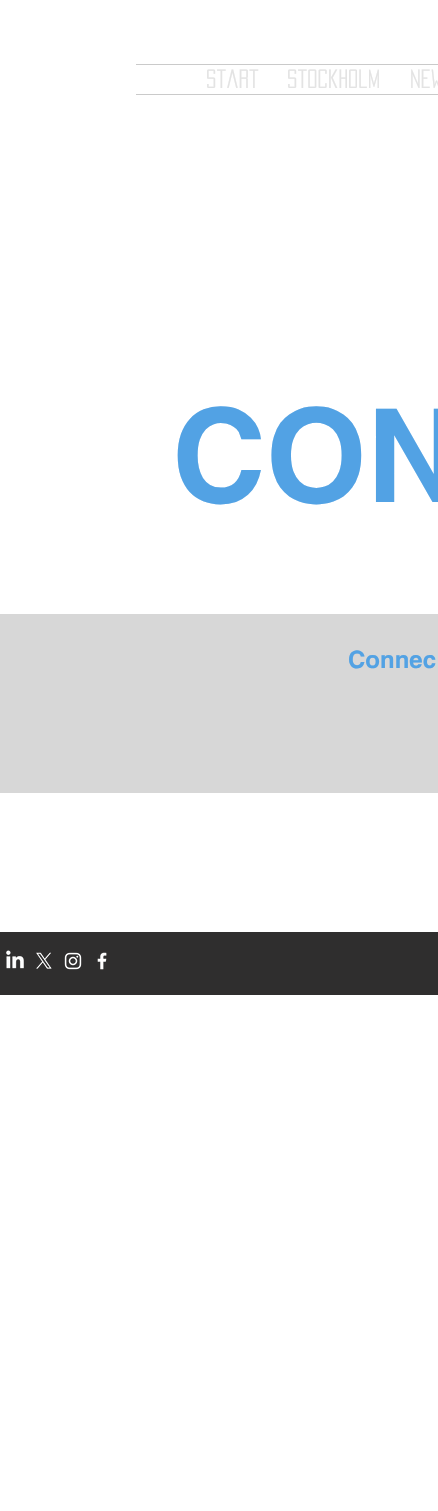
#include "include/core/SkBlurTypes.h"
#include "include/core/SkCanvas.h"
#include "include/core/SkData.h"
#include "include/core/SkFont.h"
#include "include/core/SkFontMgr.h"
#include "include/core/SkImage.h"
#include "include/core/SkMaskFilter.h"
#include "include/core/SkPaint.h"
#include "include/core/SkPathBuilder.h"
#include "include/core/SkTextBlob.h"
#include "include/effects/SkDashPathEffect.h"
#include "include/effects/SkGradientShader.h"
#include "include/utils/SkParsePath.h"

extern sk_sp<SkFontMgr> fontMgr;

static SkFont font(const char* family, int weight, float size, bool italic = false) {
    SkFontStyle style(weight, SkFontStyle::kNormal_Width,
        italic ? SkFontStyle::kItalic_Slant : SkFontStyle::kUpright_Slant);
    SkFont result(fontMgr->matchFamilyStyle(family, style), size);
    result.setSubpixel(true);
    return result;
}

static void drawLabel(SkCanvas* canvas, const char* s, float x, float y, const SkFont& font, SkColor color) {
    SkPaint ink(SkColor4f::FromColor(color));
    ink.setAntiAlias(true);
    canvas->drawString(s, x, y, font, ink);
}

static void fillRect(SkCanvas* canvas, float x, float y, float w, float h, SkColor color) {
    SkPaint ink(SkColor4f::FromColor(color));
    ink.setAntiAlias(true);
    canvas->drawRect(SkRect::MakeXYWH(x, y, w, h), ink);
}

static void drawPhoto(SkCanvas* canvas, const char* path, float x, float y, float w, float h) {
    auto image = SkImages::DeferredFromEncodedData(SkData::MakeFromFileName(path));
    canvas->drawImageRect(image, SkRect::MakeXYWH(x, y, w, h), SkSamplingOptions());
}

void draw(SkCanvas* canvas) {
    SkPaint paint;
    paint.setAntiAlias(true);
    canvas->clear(0xFFFFFFFF);
    fillRect(canvas, 136, 64, 302, 1, 0xFFCACACA);
    fillRect(canvas, 136, 94, 302, 1, 0xFFCACACA);
    SkFont font1 = font("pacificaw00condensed", 400, 23);
    drawLabel(canvas, "Start", 206, 88, font1, 0xFFE3E3E3);
    drawLabel(canvas, "Stockholm", 287, 88, font1, 0xFFE3E3E3);
    drawLabel(canvas, "New", 410, 88, font1, 0xFFE3E3E3);
    SkFont font2 = font("helvetica", 700, 130);
    drawLabel(canvas, "CON", 172, 502, font2, 0xFF52A2E4);
    fillRect(canvas, 0, 614, 438, 179, 0xFFD7D7D7);
    SkFont font3 = font("helvetica", 700, 24);
    drawLabel(canvas, "Connec", 348, 668, font3, 0xFF52A2E4);
    fillRect(canvas, 0, 932, 438, 63, 0xFF2F2E2E);
    drawPhoto(canvas, "assets/img1.png", 6, 950, 18, 19);
    drawPhoto(canvas, "assets/img2.png", 36, 952, 16, 17);
    drawPhoto(canvas, "assets/img3.png", 64, 952, 18, 18);
    drawPhoto(canvas, "assets/img4.png", 97, 952, 10, 18);
}
